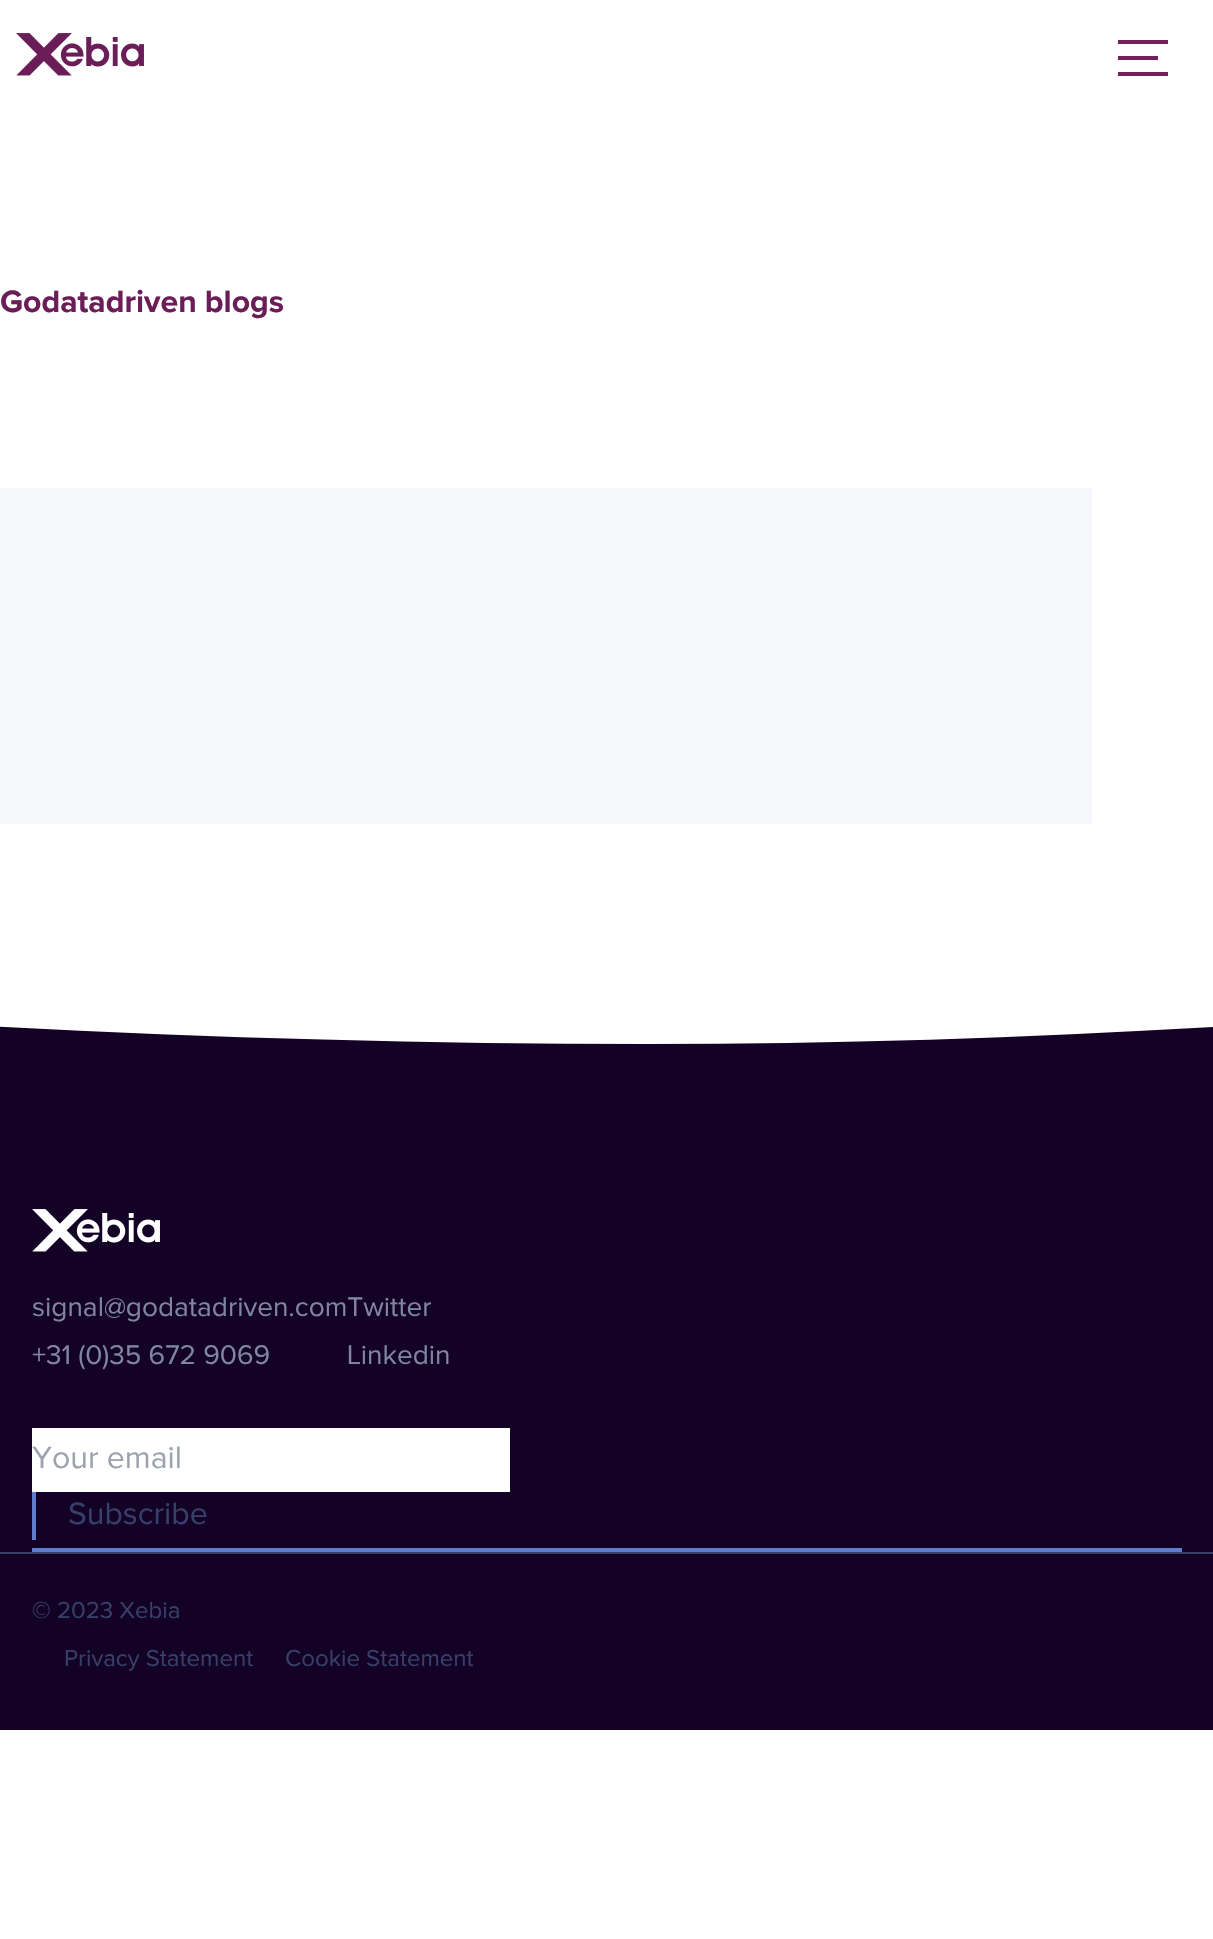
#include "include/core/SkBlurTypes.h"
#include "include/core/SkCanvas.h"
#include "include/core/SkData.h"
#include "include/core/SkFont.h"
#include "include/core/SkFontMgr.h"
#include "include/core/SkImage.h"
#include "include/core/SkMaskFilter.h"
#include "include/core/SkPaint.h"
#include "include/core/SkPathBuilder.h"
#include "include/core/SkTextBlob.h"
#include "include/effects/SkDashPathEffect.h"
#include "include/effects/SkGradientShader.h"
#include "include/utils/SkParsePath.h"

extern sk_sp<SkFontMgr> fontMgr;

static SkFont font(const char* family, int weight, float size, bool italic = false) {
    SkFontStyle style(weight, SkFontStyle::kNormal_Width,
        italic ? SkFontStyle::kItalic_Slant : SkFontStyle::kUpright_Slant);
    SkFont result(fontMgr->matchFamilyStyle(family, style), size);
    result.setSubpixel(true);
    return result;
}

static void drawLabel(SkCanvas* canvas, const char* s, float x, float y, const SkFont& font, SkColor color) {
    SkPaint ink(SkColor4f::FromColor(color));
    ink.setAntiAlias(true);
    canvas->drawString(s, x, y, font, ink);
}

static void fillRect(SkCanvas* canvas, float x, float y, float w, float h, SkColor color) {
    SkPaint ink(SkColor4f::FromColor(color));
    ink.setAntiAlias(true);
    canvas->drawRect(SkRect::MakeXYWH(x, y, w, h), ink);
}

static void drawPhoto(SkCanvas* canvas, const char* path, float x, float y, float w, float h) {
    auto image = SkImages::DeferredFromEncodedData(SkData::MakeFromFileName(path));
    canvas->drawImageRect(image, SkRect::MakeXYWH(x, y, w, h), SkSamplingOptions());
}

static SkPath parsePath(const char* data, bool evenOdd = false) {
    SkPath result = *SkParsePath::FromSVGString(data);
    if (evenOdd) result.setFillType(SkPathFillType::kEvenOdd);
    return result;
}

void draw(SkCanvas* canvas) {
    SkPaint paint;
    paint.setAntiAlias(true);
    canvas->clear(0xFFFFFFFF);
    drawPhoto(canvas, "assets/img1.png", 16, 33, 128, 43);
    fillRect(canvas, 1118, 56, 40, 4, 0xFF74205F);
    fillRect(canvas, 1118, 40, 50, 4, 0xFF74205F);
    fillRect(canvas, 1118, 72, 50, 4, 0xFF74205F);
    SkFont font1 = font("Proxima Nova", 700, 32);
    drawLabel(canvas, "Godatadriven blogs", 0, 312, font1, 0xFF6A1D57);
    fillRect(canvas, 0, 488, 1092, 336, 0xFFF7F8FC);
    fillRect(canvas, 0, 1026, 1213, 704, 0xFF140126);
    paint.setColor(0xFFFFFFFF);
    canvas->drawPath(parsePath("M-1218 874V824H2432V874C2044 965 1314 1044 647 1044C-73 1044-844 976-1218 874Z"), paint);
    drawPhoto(canvas, "assets/img2.png", 32, 1209, 128, 43);
    SkFont font2 = font("Proxima Nova", 400, 28);
    drawLabel(canvas, "signal@godatadriven.comTwitter", 32, 1316, font2, 0xFF7F869F);
    drawLabel(canvas, "+31 (0)35 672 9069", 32, 1364, font2, 0xFF7F869F);
    drawLabel(canvas, "Linkedin", 347, 1364, font2, 0xFF7F869F);
    fillRect(canvas, 32, 1548, 1150, 4, 0xFF5F7DCA);
    fillRect(canvas, 32, 1428, 478, 64, 0xFFFFFFFF);
    SkFont font3 = font("Proxima Nova", 400, 32);
    drawLabel(canvas, "Your email", 32, 1468, font3, 0xFF9CA3AF);
    fillRect(canvas, 32, 1492, 4, 48, 0xFF5F7DCA);
    drawLabel(canvas, "Subscribe", 68, 1524, font3, 0xFF364069);
    fillRect(canvas, 0, 1552, 1213, 2, 0xFF364069);
    SkFont font4 = font("Proxima Nova", 400, 24);
    drawLabel(canvas, "© 2023 Xebia", 32, 1618, font4, 0xFF364069);
    drawLabel(canvas, "Privacy Statement", 64, 1666, font4, 0xFF364069);
    drawLabel(canvas, "Cookie Statement", 285, 1666, font4, 0xFF364069);
}
